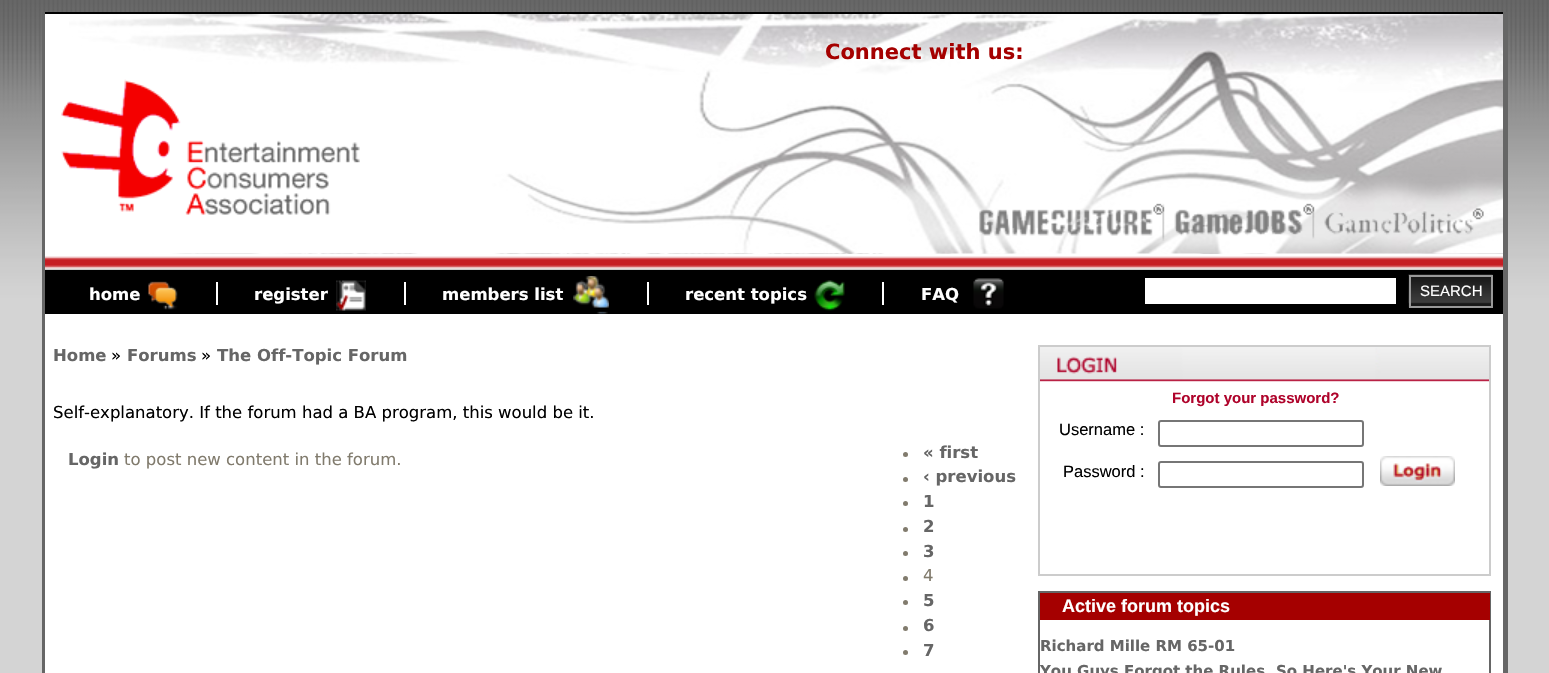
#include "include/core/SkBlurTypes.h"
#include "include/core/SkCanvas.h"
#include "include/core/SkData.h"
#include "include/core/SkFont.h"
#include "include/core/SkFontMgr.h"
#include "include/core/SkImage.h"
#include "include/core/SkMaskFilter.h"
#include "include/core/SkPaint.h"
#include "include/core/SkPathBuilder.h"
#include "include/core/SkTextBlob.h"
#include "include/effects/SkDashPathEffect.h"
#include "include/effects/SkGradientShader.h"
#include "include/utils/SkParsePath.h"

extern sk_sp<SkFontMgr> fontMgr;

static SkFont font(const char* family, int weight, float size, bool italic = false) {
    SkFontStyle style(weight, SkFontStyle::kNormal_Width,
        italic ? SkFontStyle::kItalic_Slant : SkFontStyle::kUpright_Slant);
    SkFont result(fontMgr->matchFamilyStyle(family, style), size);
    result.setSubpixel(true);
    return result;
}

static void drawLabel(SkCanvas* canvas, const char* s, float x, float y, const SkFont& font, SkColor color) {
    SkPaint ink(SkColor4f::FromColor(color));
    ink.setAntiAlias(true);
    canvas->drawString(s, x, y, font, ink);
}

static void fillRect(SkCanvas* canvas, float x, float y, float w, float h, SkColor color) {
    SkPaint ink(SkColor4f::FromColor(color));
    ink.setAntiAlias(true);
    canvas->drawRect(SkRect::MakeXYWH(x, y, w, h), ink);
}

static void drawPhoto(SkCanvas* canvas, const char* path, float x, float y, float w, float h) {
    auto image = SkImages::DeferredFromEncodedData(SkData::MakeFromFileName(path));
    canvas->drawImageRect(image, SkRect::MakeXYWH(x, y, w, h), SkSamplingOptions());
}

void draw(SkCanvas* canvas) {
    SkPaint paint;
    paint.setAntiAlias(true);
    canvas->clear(0xFFFFFFFF);
    drawPhoto(canvas, "assets/img1.png", 0, 0, 1549, 673);
    fillRect(canvas, 45, 14, 1458, 659, 0xFFFFFFFF);
    fillRect(canvas, 1503, 12, 5, 661, 0xFF666666);
    fillRect(canvas, 42, 12, 3, 661, 0xFF666666);
    drawPhoto(canvas, "assets/img2.png", 69, 14, 1434, 240);
    fillRect(canvas, 45, 12, 1458, 2, 0xFF000000);
    SkFont font1 = font("DejaVu Sans", 700, 21);
    drawLabel(canvas, "Connect with us:", 825, 59, font1, 0xFFA50000);
    drawPhoto(canvas, "assets/img3.png", 61, 79, 299, 136);
    drawPhoto(canvas, "assets/img4.png", 979, 203, 184, 33);
    drawPhoto(canvas, "assets/img5.png", 1162, 203, 151, 38);
    drawPhoto(canvas, "assets/img6.png", 1312, 206, 172, 33);
    drawPhoto(canvas, "assets/img7.png", 45, 255, 1458, 15);
    fillRect(canvas, 45, 270, 1458, 44, 0xFF000000);
    fillRect(canvas, 216, 282, 2, 23, 0xFFFFFFFF);
    drawPhoto(canvas, "assets/img8.png", 148, 281, 30, 29);
    SkFont font2 = font("DejaVu Sans", 700, 16.5f);
    drawLabel(canvas, "home", 89, 300, font2, 0xFFFFFFFF);
    fillRect(canvas, 404, 282, 2, 23, 0xFFFFFFFF);
    drawPhoto(canvas, "assets/img9.png", 336, 280, 30, 31);
    drawLabel(canvas, "register", 254, 300, font2, 0xFFFFFFFF);
    fillRect(canvas, 647, 282, 2, 23, 0xFFFFFFFF);
    drawPhoto(canvas, "assets/img10.png", 573, 276, 36, 38);
    drawLabel(canvas, "members list", 442, 300, font2, 0xFFFFFFFF);
    fillRect(canvas, 882, 282, 2, 23, 0xFFFFFFFF);
    drawPhoto(canvas, "assets/img11.png", 814, 280, 31, 31);
    drawLabel(canvas, "recent topics", 685, 300, font2, 0xFFFFFFFF);
    drawPhoto(canvas, "assets/img12.png", 973, 278, 31, 31);
    drawLabel(canvas, "FAQ", 921, 300, font2, 0xFFFFFFFF);
    fillRect(canvas, 1145, 278, 251, 26, 0xFFFFFFFF);
    drawPhoto(canvas, "assets/img13.png", 1408, 274, 85, 34);
    paint.setStroke(true);
    paint.setStrokeWidth(2);
    paint.setColor(0xFF999999);
    canvas->drawRect(SkRect::MakeXYWH(1410, 276, 82, 31), paint);
    SkFont font3 = font("Liberation Sans", 400, 15);
    drawLabel(canvas, "SEARCH", 1420, 296, font3, 0xFFFFFFFF);
    drawLabel(canvas, "Home", 53, 361, font2, 0xFF666666);
    SkFont font4 = font("DejaVu Sans", 400, 16.5f);
    drawLabel(canvas, "»", 111, 361, font4, 0xFF000000);
    drawLabel(canvas, "Forums", 127, 361, font2, 0xFF666666);
    drawLabel(canvas, "»", 201, 361, font4, 0xFF000000);
    drawLabel(canvas, "The Off-Topic Forum", 217, 361, font2, 0xFF666666);
    drawLabel(canvas, "Self-explanatory. If the forum had a BA program, this would be it.", 53, 418, font4, 0xFF000000);
    drawLabel(canvas, "Login", 68, 465, font2, 0xFF666666);
    drawLabel(canvas, "to post new content in the forum.", 124, 465, font4, 0xFF817B6D);
    paint.setStroke(false);
    paint.setColor(0xFF817B6D);
    canvas->drawCircle(905.5f, 454.5f, 2.5f, paint);
    drawLabel(canvas, "« first", 923, 458, font2, 0xFF666666);
    canvas->drawCircle(905.5f, 479.5f, 2.5f, paint);
    drawLabel(canvas, "‹ previous", 923, 482, font2, 0xFF666666);
    canvas->drawCircle(905.5f, 503.5f, 2.5f, paint);
    drawLabel(canvas, "1", 923, 507, font2, 0xFF666666);
    canvas->drawCircle(905.5f, 529.5f, 2.5f, paint);
    drawLabel(canvas, "2", 923, 532, font2, 0xFF666666);
    canvas->drawCircle(905.5f, 553.5f, 2.5f, paint);
    drawLabel(canvas, "3", 923, 557, font2, 0xFF666666);
    canvas->drawCircle(905.5f, 578.5f, 2.5f, paint);
    drawLabel(canvas, "4", 923, 581, font4, 0xFF817B6D);
    canvas->drawCircle(905.5f, 602.5f, 2.5f, paint);
    drawLabel(canvas, "5", 923, 606, font2, 0xFF666666);
    canvas->drawCircle(905.5f, 628.5f, 2.5f, paint);
    drawLabel(canvas, "6", 923, 631, font2, 0xFF666666);
    canvas->drawCircle(905.5f, 652.5f, 2.5f, paint);
    drawLabel(canvas, "7", 923, 656, font2, 0xFF666666);
    drawPhoto(canvas, "assets/img14.png", 1040, 347, 449, 35);
    paint.setStroke(true);
    paint.setColor(0xFFCCCCCC);
    canvas->drawRect(SkRect::MakeXYWH(1039, 346, 451, 229), paint);
    SkFont font5 = font("Liberation Sans", 700, 15);
    drawLabel(canvas, "Forgot your password?", 1172, 403, font5, 0xFFAF032B);
    SkFont font6 = font("Liberation Sans", 400, 16.5f);
    drawLabel(canvas, "Username :", 1059, 435, font6, 0xFF000000);
    paint.setColor(0xFF767676);
    canvas->drawRoundRect(SkRect::MakeXYWH(1159, 421, 204, 25), 2, 2, paint);
    drawLabel(canvas, "Password :", 1063, 477, font6, 0xFF000000);
    canvas->drawRoundRect(SkRect::MakeXYWH(1159, 462, 204, 25), 2, 2, paint);
    drawPhoto(canvas, "assets/img15.png", 1380, 456, 75, 30);
    paint.setColor(0xFF666666);
    canvas->drawRect(SkRect::MakeXYWH(1039, 592, 451, 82), paint);
    fillRect(canvas, 1040, 593, 450, 27, 0xFFA50000);
    SkFont font7 = font("Liberation Sans", 700, 18);
    drawLabel(canvas, "Active forum topics", 1062, 612, font7, 0xFFFFFFFF);
    SkFont font8 = font("DejaVu Sans", 700, 15);
    drawLabel(canvas, "Richard Mille RM 65-01", 1040, 651, font8, 0xFF666666);
    drawLabel(canvas, "You Guys Forgot the Rules, So Here's Your New", 1040, 676, font8, 0xFF666666);
}
